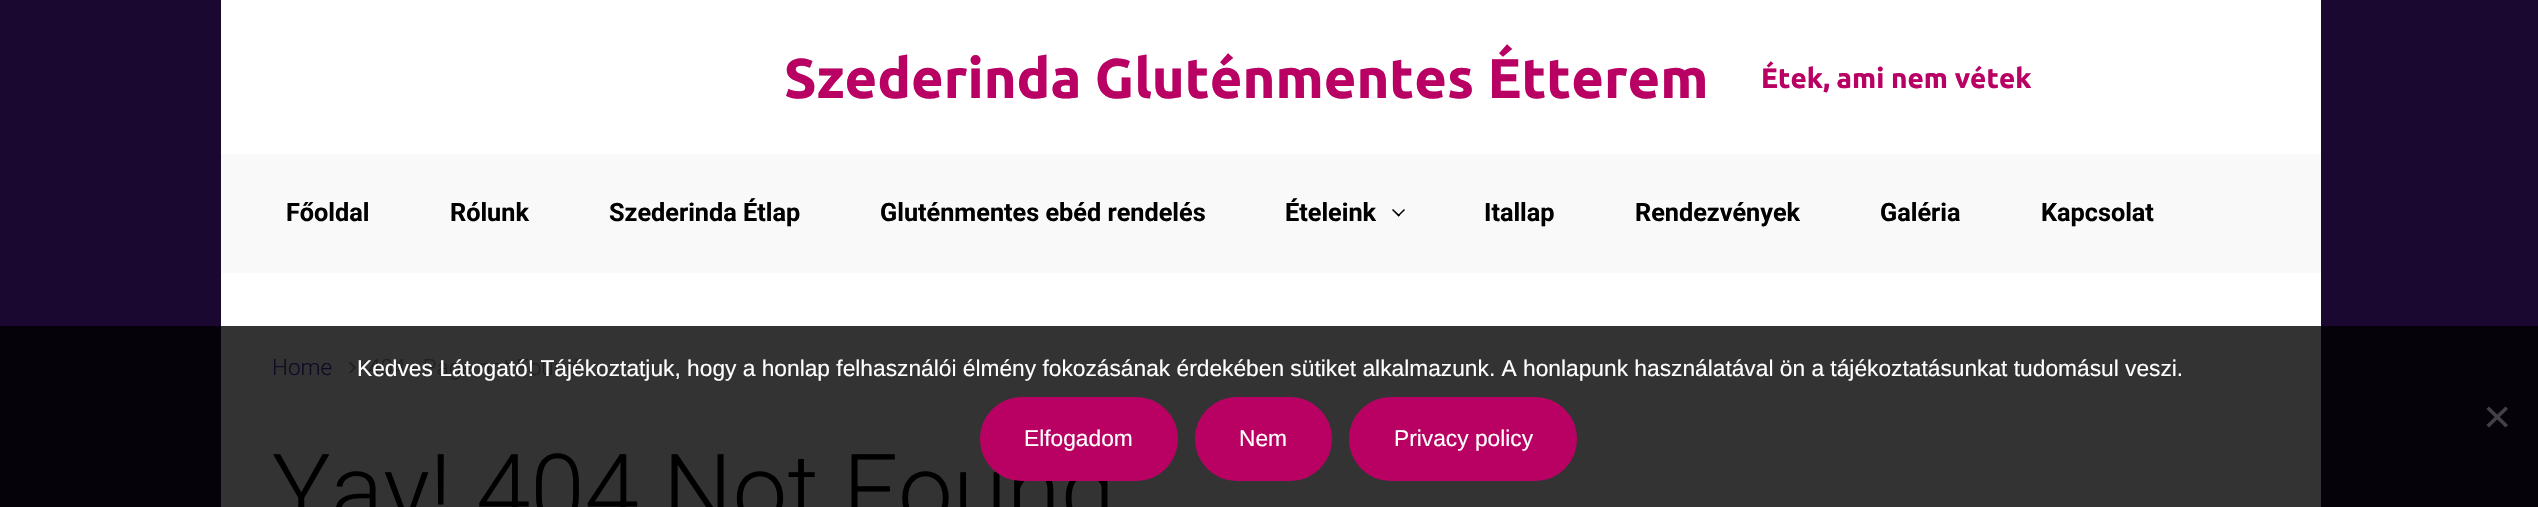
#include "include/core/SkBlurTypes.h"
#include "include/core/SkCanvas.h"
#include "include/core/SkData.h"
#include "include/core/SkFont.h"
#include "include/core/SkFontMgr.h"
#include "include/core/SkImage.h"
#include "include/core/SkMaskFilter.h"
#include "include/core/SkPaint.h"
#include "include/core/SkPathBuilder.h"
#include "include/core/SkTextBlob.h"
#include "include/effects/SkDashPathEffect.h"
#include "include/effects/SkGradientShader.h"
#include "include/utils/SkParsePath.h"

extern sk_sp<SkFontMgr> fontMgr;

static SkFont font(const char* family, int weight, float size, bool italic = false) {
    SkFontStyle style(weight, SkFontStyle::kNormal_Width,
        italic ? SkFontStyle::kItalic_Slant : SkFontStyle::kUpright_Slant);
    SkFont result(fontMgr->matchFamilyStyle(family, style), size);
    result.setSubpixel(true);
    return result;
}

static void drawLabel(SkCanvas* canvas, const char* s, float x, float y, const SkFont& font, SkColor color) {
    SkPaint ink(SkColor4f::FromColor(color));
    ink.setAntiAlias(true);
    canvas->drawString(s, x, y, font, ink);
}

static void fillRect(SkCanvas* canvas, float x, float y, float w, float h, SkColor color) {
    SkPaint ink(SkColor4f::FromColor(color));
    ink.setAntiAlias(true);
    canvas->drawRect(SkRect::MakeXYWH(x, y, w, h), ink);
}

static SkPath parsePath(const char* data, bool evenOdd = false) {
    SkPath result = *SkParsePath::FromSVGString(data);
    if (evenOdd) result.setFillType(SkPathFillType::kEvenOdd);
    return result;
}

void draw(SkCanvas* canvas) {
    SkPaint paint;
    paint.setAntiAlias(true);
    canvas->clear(0xFF1A0831);
    fillRect(canvas, 0, 326, 2538, 181, 0xFF05020A);
    fillRect(canvas, 221, 154, 2100, 119, 0xFFF9F9F9);
    fillRect(canvas, 221, 0, 2100, 154, 0xFFFFFFFF);
    SkFont font1 = font("Ubuntu", 700, 56);
    drawLabel(canvas, "Szederinda Gluténmentes Étterem", 784, 98, font1, 0xFFB90164);
    SkFont font2 = font("Ubuntu", 700, 28);
    drawLabel(canvas, "Étek, ami nem vétek", 1761, 88, font2, 0xFFB90164);
    SkFont font3 = font("Roboto", 700, 25.25f);
    drawLabel(canvas, "Főoldal", 286, 221, font3, 0xFF000000);
    drawLabel(canvas, "Rólunk", 450, 221, font3, 0xFF000000);
    drawLabel(canvas, "Szederinda Étlap", 609, 221, font3, 0xFF000000);
    drawLabel(canvas, "Gluténmentes ebéd rendelés", 880, 221, font3, 0xFF000000);
    drawLabel(canvas, "Ételeink", 1285, 221, font3, 0xFF000000);
    paint.setColor(0xFF000000);
    canvas->drawPath(parsePath("M1404 209L1405 210L1398.5 216.5L1397.5 215.5Z"), paint);
    canvas->drawPath(parsePath("M1393 209L1400 215.5L1398.5 216.5L1392 210Z"), paint);
    drawLabel(canvas, "Itallap", 1484, 221, font3, 0xFF000000);
    drawLabel(canvas, "Rendezvények", 1635, 221, font3, 0xFF000000);
    drawLabel(canvas, "Galéria", 1880, 221, font3, 0xFF000000);
    drawLabel(canvas, "Kapcsolat", 2041, 221, font3, 0xFF000000);
    fillRect(canvas, 221, 273, 2100, 53, 0xFFFFFFFF);
    fillRect(canvas, 221, 326, 2100, 181, 0xFF333333);
    SkFont font4 = font("Roboto", 300, 22.5f);
    drawLabel(canvas, "Home", 272, 375, font4, 0xFF0F0923);
    paint.setColor(0xFF1F1F1F);
    canvas->drawPath(parsePath("M349 363L350 361.5L356 367.5L355 369Z"), paint);
    canvas->drawPath(parsePath("M349 372.5L355 366.5L356 367.5L350 373.5Z"), paint);
    drawLabel(canvas, "404 - Page not Found", 368, 375, font4, 0xFF1F1F1F);
    SkFont font5 = font("Roboto", 300, 98);
    drawLabel(canvas, "Yay! 404 Not Found", 272, 524, font5, 0xFF000000);
    SkFont font6 = font("Liberation Sans", 400, 22.75f);
    drawLabel(canvas, "Kedves Látogató! Tájékoztatjuk, hogy a honlap felhasználói élmény fokozásának érdekében sütiket alkalmazunk. A honlapunk használatával ön a tájékoztatásunkat tudomásul veszi.", 357, 376, font6, 0xFFFFFFFF);
    paint.setColor(0xFF434145);
    canvas->drawPath(parsePath("M2505.5 406.5L2508 409L2489 427.5L2486.5 425Z"), paint);
    canvas->drawPath(parsePath("M2486.5 409L2489 406.5L2508 425L2505.5 427.5Z"), paint);
    paint.setColor(0xFFB90164);
    canvas->drawRoundRect(SkRect::MakeXYWH(982.5f, 399.5f, 193, 79), 39.5f, 39.5f, paint);
    paint.setStroke(true);
    paint.setStrokeWidth(5);
    canvas->drawRoundRect(SkRect::MakeXYWH(982.5f, 399.5f, 193, 79), 39.5f, 39.5f, paint);
    drawLabel(canvas, "Elfogadom", 1024, 446, font6, 0xFFFFFFFF);
    paint.setStroke(false);
    canvas->drawRoundRect(SkRect::MakeXYWH(1197.5f, 399.5f, 132, 79), 39.5f, 39.5f, paint);
    paint.setStroke(true);
    canvas->drawRoundRect(SkRect::MakeXYWH(1197.5f, 399.5f, 132, 79), 39.5f, 39.5f, paint);
    drawLabel(canvas, "Nem", 1239, 446, font6, 0xFFFFFFFF);
    paint.setStroke(false);
    canvas->drawRoundRect(SkRect::MakeXYWH(1351.5f, 399.5f, 223, 79), 39.5f, 39.5f, paint);
    paint.setStroke(true);
    canvas->drawRoundRect(SkRect::MakeXYWH(1351.5f, 399.5f, 223, 79), 39.5f, 39.5f, paint);
    drawLabel(canvas, "Privacy policy", 1394, 446, font6, 0xFFFFFFFF);
}
